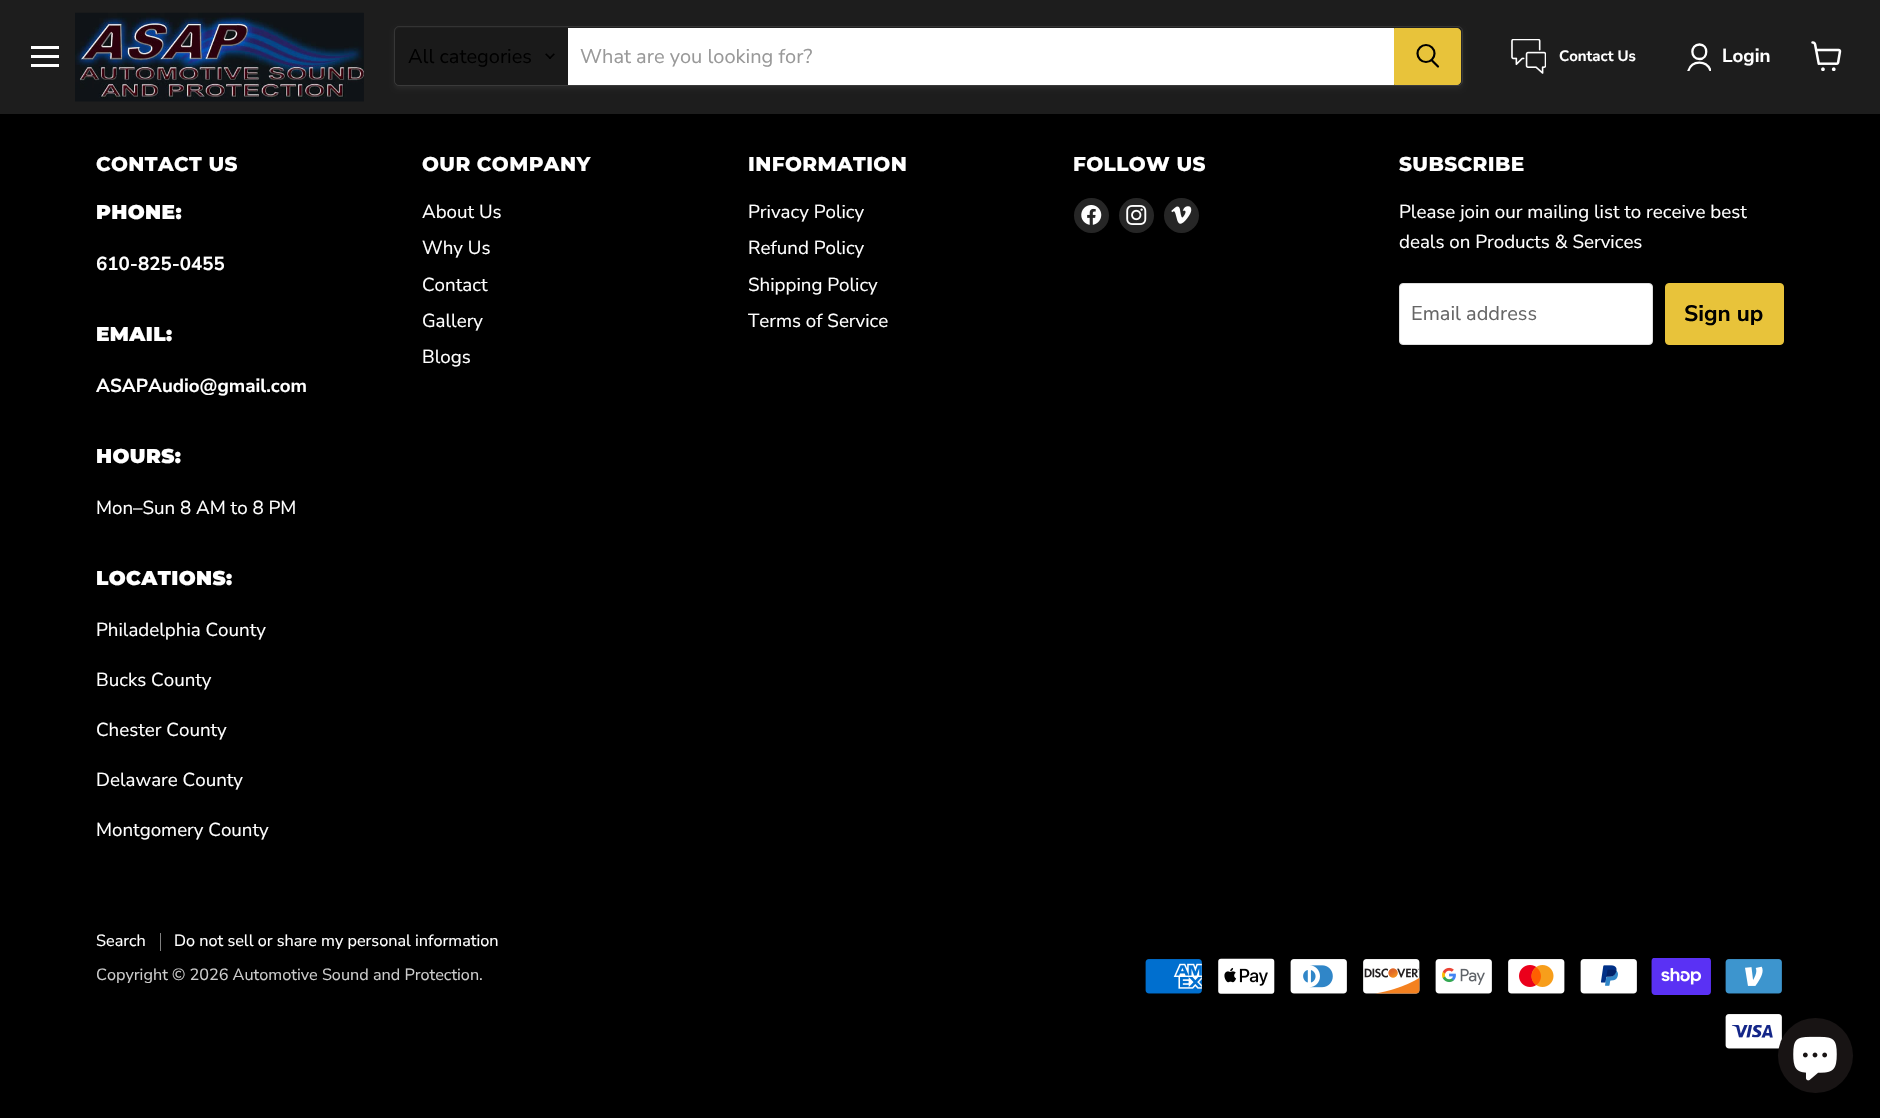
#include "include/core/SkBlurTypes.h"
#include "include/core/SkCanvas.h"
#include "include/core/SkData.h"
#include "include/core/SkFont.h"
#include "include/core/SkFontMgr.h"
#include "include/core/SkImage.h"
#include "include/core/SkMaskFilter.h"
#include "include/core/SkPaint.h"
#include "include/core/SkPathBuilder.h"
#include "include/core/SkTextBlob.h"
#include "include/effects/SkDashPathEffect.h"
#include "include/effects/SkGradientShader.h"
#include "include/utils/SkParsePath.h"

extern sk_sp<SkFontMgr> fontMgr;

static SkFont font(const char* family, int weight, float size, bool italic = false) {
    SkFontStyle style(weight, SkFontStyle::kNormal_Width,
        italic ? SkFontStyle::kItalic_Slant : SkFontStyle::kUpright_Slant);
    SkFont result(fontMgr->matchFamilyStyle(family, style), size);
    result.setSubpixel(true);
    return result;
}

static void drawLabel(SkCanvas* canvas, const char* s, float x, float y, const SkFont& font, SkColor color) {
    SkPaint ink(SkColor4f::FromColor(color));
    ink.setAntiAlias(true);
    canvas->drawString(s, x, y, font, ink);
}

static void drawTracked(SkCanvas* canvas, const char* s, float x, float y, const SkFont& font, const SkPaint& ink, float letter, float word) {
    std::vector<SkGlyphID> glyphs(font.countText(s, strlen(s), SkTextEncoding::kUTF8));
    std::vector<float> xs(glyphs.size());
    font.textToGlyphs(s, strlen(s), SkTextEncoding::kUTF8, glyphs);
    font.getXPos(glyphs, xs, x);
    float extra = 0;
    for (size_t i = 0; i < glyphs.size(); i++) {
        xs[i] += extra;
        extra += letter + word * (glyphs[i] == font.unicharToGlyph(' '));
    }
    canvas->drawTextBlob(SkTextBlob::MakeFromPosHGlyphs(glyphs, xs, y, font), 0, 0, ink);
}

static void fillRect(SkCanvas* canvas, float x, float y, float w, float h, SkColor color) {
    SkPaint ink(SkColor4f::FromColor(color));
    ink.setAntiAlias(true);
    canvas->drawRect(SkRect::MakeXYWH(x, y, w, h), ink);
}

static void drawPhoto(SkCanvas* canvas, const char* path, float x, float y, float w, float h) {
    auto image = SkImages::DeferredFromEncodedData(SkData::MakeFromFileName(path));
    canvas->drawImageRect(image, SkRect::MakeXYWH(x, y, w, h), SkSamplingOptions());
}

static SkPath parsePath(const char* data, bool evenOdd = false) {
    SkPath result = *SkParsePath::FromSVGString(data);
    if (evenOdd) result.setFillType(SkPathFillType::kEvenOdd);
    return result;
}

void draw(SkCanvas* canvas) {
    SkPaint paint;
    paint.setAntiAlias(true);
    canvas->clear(0xFF000000);
    fillRect(canvas, 0, 0, 1880, 114, 0xFF1D1D1D);
    fillRect(canvas, 31, 46, 28, 3, 0xFFFFFFFF);
    fillRect(canvas, 31, 55, 28, 3, 0xFFFFFFFF);
    fillRect(canvas, 31, 64, 28, 3, 0xFFFFFFFF);
    drawPhoto(canvas, "assets/img1.png", 75, 12, 289, 90);
    paint.setColor(0x1C808080);
    paint.setMaskFilter(SkMaskFilter::MakeBlur(kNormal_SkBlurStyle, 2));
    canvas->drawRoundRect(SkRect::MakeXYWH(394, 29, 1069, 60), 5, 5, paint);
    paint.setMaskFilter(nullptr);
    paint.setStroke(true);
    paint.setStrokeWidth(1);
    paint.setColor(0x33808080);
    canvas->drawRoundRect(SkRect::MakeXYWH(394.5f, 26.5f, 1068, 59), 4.5f, 4.5f, paint);
    paint.setStroke(false);
    paint.setColor(0xFF1A1A1A);
    canvas->drawPath(parsePath("M399 28H568V85H399C397 85 395 83 395 81V32C395 30 397 28 399 28Z"), paint);
    SkFont font1 = font("Nunito Sans", 400, 20);
    drawLabel(canvas, "All categories", 408, 63, font1, 0xFF000000);
    drawPhoto(canvas, "assets/img2.png", 545, 53, 10, 6);
    fillRect(canvas, 568, 28, 826, 57, 0xFFFFFFFF);
    drawLabel(canvas, "What are you looking for?", 580, 63, font1, 0xFF999999);
    paint.setColor(0xFFE8C33A);
    canvas->drawPath(parsePath("M1394.5 28.5H1457C1459 28.5 1460.5 30 1460.5 32V81C1460.5 83 1459 84.5 1457 84.5H1394.5Z"), paint);
    paint.setStroke(true);
    canvas->drawPath(parsePath("M1394.5 28.5H1457C1459 28.5 1460.5 30 1460.5 32V81C1460.5 83 1459 84.5 1457 84.5H1394.5Z"), paint);
    paint.setStrokeWidth(2.2f);
    paint.setStrokeCap(SkPaint::kRound_Cap);
    paint.setColor(0xFF000000);
    canvas->drawPath(parsePath("M1438 66.5L1432 60.5"), paint);
    paint.setStrokeCap(SkPaint::kButt_Cap);
    canvas->drawCircle(1426, 53.5f, 8.5f, paint);
    drawPhoto(canvas, "assets/img3.png", 1511, 39, 35, 35);
    SkFont font2 = font("Nunito Sans", 700, 15);
    drawLabel(canvas, "Contact Us", 1559, 61, font2, 0xFFFFFFFF);
    paint.setStrokeWidth(2.3f);
    paint.setStrokeCap(SkPaint::kRound_Cap);
    paint.setStrokeJoin(SkPaint::kRound_Join);
    paint.setColor(0xFFFFFFFF);
    canvas->drawPath(parsePath("M1699.5 59C1708.5 59 1708.5 44.5 1699.5 44.5C1690 44.5 1690 59 1699.5 59Z"), paint);
    canvas->save();
    canvas->clipRect(SkRect::MakeXYWH(1686, 43, 25, 28));
    canvas->drawPath(parsePath("M1710.5 70.5C1706.5 60 1692 60 1688.5 70.5"), paint);
    canvas->restore();
    SkFont font3 = font("Nunito Sans", 700, 18.75f);
    drawLabel(canvas, "Login", 1722, 62, font3, 0xFFFFFFFF);
    drawPhoto(canvas, "assets/img4.png", 1811, 41, 31, 30);
    SkFont font4 = font("Montserrat", 800, 20);
    paint.setStroke(false);
    drawTracked(canvas, "CONTACT US", 96, 171, font4, paint, 0.4f, 0);
    SkFont font5 = font("Montserrat", 900, 20);
    drawTracked(canvas, "PHONE:", 96, 219, font5, paint, 0.4f, 0);
    drawLabel(canvas, "610-825-0455", 96, 270, font3, 0xFFFFFFFF);
    drawTracked(canvas, "EMAIL:", 96, 341, font5, paint, 0.4f, 0);
    drawLabel(canvas, "ASAPAudio@gmail.com", 96, 392, font3, 0xFFFFFFFF);
    drawTracked(canvas, "HOURS:", 96, 463, font5, paint, 0.4f, 0);
    SkFont font6 = font("Nunito Sans", 400, 18.75f);
    drawLabel(canvas, "Mon–Sun 8 AM to 8 PM", 96, 514, font6, 0xFFFFFFFF);
    drawTracked(canvas, "LOCATIONS:", 96, 585, font5, paint, 0.4f, 0);
    drawLabel(canvas, "Philadelphia County", 96, 636, font6, 0xFFFFFFFF);
    drawLabel(canvas, "Bucks County", 96, 686, font6, 0xFFFFFFFF);
    drawLabel(canvas, "Chester County", 96, 736, font6, 0xFFFFFFFF);
    drawLabel(canvas, "Delaware County", 96, 786, font6, 0xFFFFFFFF);
    drawLabel(canvas, "Montgomery County", 96, 836, font6, 0xFFFFFFFF);
    drawTracked(canvas, "OUR COMPANY", 422, 171, font4, paint, 0.4f, 0);
    drawLabel(canvas, "About Us", 422, 218, font6, 0xFFFFFFFF);
    drawLabel(canvas, "Why Us", 422, 254, font6, 0xFFFFFFFF);
    drawLabel(canvas, "Contact", 422, 291, font6, 0xFFFFFFFF);
    drawLabel(canvas, "Gallery", 422, 327, font6, 0xFFFFFFFF);
    drawLabel(canvas, "Blogs", 422, 363, font6, 0xFFFFFFFF);
    drawTracked(canvas, "INFORMATION", 748, 171, font4, paint, 0.4f, 0);
    drawLabel(canvas, "Privacy Policy", 748, 218, font6, 0xFFFFFFFF);
    drawLabel(canvas, "Refund Policy", 748, 254, font6, 0xFFFFFFFF);
    drawLabel(canvas, "Shipping Policy", 748, 291, font6, 0xFFFFFFFF);
    drawLabel(canvas, "Terms of Service", 748, 327, font6, 0xFFFFFFFF);
    drawTracked(canvas, "FOLLOW US", 1073, 171, font4, paint, 0.4f, 0);
    paint.setColor(0xFF262626);
    canvas->drawCircle(1091.5f, 215.5f, 17.5f, paint);
    drawPhoto(canvas, "assets/img5.png", 1081, 205, 21, 20);
    canvas->drawCircle(1136.5f, 215.5f, 17.5f, paint);
    drawPhoto(canvas, "assets/img6.png", 1126, 205, 21, 20);
    canvas->drawCircle(1181.5f, 215.5f, 17.5f, paint);
    drawPhoto(canvas, "assets/img7.png", 1171, 206, 21, 18);
    paint.setColor(0xFFFFFFFF);
    drawTracked(canvas, "SUBSCRIBE", 1399, 171, font4, paint, 0.4f, 0);
    drawLabel(canvas, "Please join our mailing list to receive best", 1399, 218, font6, 0xFFFFFFFF);
    drawLabel(canvas, "deals on Products & Services", 1399, 248, font6, 0xFFFFFFFF);
    canvas->drawRoundRect(SkRect::MakeXYWH(1399.5f, 283.5f, 253, 61), 3.5f, 3.5f, paint);
    paint.setStroke(true);
    paint.setStrokeWidth(1);
    paint.setStrokeCap(SkPaint::kButt_Cap);
    paint.setStrokeJoin(SkPaint::kMiter_Join);
    paint.setColor(0xFFDDDDDD);
    canvas->drawRoundRect(SkRect::MakeXYWH(1399.5f, 283.5f, 253, 61), 3.5f, 3.5f, paint);
    drawLabel(canvas, "Email address", 1411, 320, font1, 0xFF666666);
    paint.setStroke(false);
    paint.setColor(0xFFE8C33A);
    canvas->drawRoundRect(SkRect::MakeXYWH(1665.5f, 283.5f, 118, 61), 3.5f, 3.5f, paint);
    paint.setStroke(true);
    canvas->drawRoundRect(SkRect::MakeXYWH(1665.5f, 283.5f, 118, 61), 3.5f, 3.5f, paint);
    SkFont font7 = font("Nunito Sans", 700, 22.5f);
    drawLabel(canvas, "Sign up", 1684, 321, font7, 0xFF000000);
    fillRect(canvas, 160, 933, 1, 18, 0xFF808080);
    SkFont font8 = font("Nunito Sans", 400, 16.25f);
    drawLabel(canvas, "Search", 96, 946, font8, 0xFFFFFFFF);
    drawLabel(canvas, "Do not sell or share my personal information", 174, 946, font8, 0xFFFFFFFF);
    drawLabel(canvas, "Copyright © 2026 Automotive Sound and Protection.", 96, 980, font8, 0xFFCCCCCC);
    drawPhoto(canvas, "assets/img8.png", 1145, 959, 57, 35);
    drawPhoto(canvas, "assets/img9.png", 1218, 958, 57, 36);
    drawPhoto(canvas, "assets/img10.png", 1290, 959, 57, 35);
    drawPhoto(canvas, "assets/img11.png", 1363, 959, 57, 35);
    drawPhoto(canvas, "assets/img12.png", 1435, 959, 57, 35);
    drawPhoto(canvas, "assets/img13.png", 1508, 959, 57, 35);
    drawPhoto(canvas, "assets/img14.png", 1580, 959, 57, 35);
    drawPhoto(canvas, "assets/img15.png", 1651, 958, 60, 37);
    drawPhoto(canvas, "assets/img16.png", 1725, 959, 57, 35);
    drawPhoto(canvas, "assets/img17.png", 1725, 1014, 57, 35);
    paint.setStroke(false);
    paint.setColor(0xFF181414);
    canvas->drawCircle(1815.5f, 1055.5f, 37.5f, paint);
    drawPhoto(canvas, "assets/img18.png", 1793, 1036, 44, 45);
}
